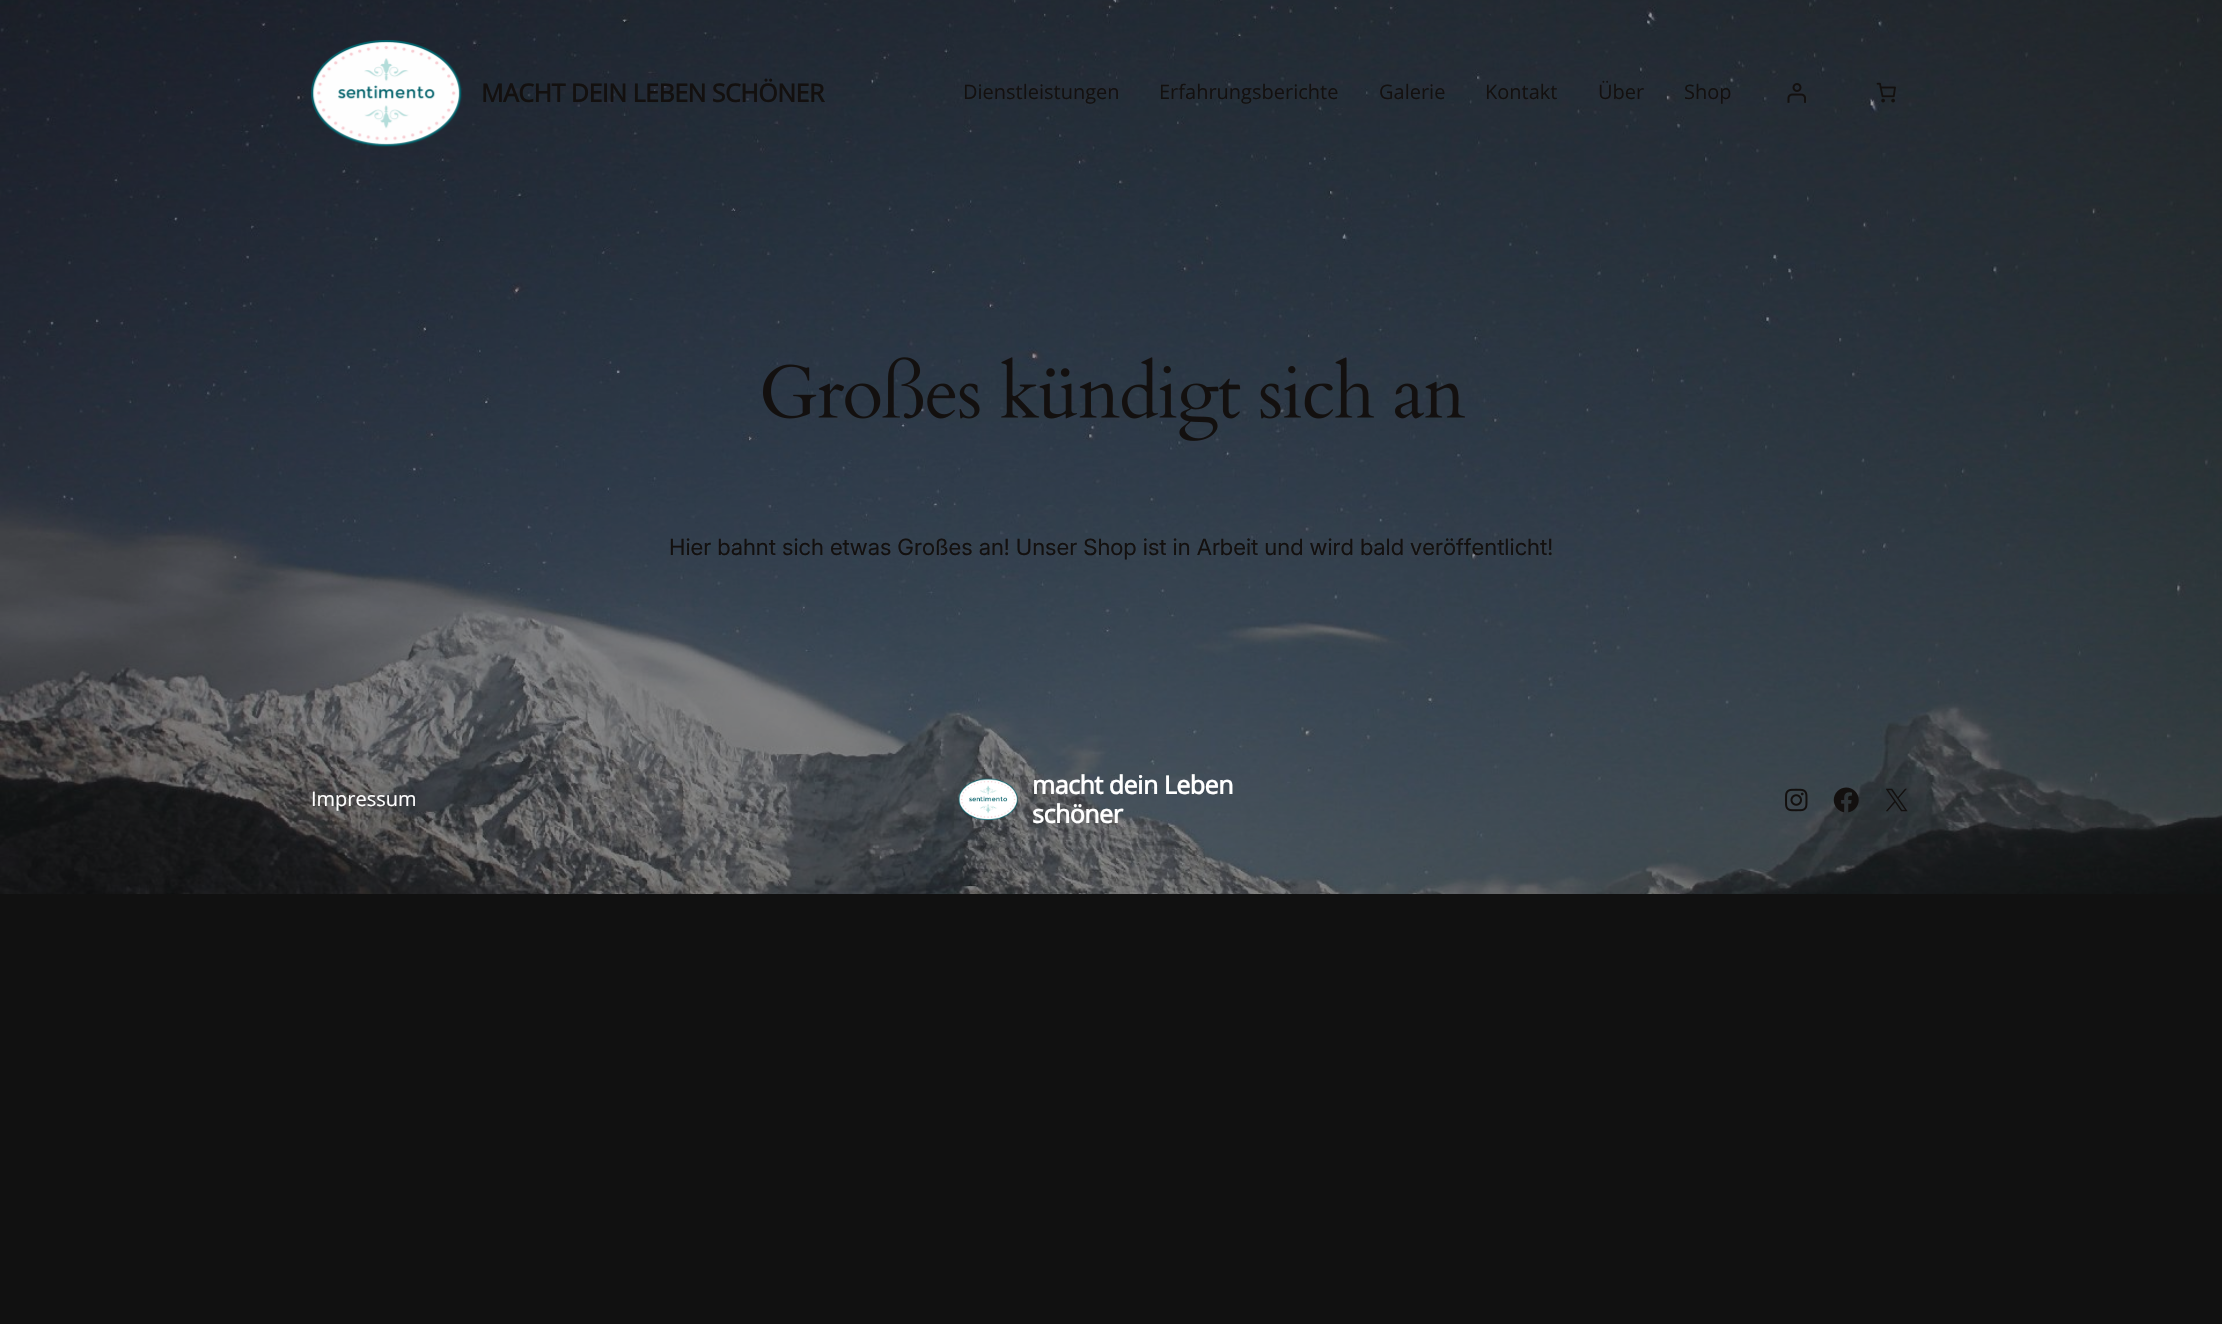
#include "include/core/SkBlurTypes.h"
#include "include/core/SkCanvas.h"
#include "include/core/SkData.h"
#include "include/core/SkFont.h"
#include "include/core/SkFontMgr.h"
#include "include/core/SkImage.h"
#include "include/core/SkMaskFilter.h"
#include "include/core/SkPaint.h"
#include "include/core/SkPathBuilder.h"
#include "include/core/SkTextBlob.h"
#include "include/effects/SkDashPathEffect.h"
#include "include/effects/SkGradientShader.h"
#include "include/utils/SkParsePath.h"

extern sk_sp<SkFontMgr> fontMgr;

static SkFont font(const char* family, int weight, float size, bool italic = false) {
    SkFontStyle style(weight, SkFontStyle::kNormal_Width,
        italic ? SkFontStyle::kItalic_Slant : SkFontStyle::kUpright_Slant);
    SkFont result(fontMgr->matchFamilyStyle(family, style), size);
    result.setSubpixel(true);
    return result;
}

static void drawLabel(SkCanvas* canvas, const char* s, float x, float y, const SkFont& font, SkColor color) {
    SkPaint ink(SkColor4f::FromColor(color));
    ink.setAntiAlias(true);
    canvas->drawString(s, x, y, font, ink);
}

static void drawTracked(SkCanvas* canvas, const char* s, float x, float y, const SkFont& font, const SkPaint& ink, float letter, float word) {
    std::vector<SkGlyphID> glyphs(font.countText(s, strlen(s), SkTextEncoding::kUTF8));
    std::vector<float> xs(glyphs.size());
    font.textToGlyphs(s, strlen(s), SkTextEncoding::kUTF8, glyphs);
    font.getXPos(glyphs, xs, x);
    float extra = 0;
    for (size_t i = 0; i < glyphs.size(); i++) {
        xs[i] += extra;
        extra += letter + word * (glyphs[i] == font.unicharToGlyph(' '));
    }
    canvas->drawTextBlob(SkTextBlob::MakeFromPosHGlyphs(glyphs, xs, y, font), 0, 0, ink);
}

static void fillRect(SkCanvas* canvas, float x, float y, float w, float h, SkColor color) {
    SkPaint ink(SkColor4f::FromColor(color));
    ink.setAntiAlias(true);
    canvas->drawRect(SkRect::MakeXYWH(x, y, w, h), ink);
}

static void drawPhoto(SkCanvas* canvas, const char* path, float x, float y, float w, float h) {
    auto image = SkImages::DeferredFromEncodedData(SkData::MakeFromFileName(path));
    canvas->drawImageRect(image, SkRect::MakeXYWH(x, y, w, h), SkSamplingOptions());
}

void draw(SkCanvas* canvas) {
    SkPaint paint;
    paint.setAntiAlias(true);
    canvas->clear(0xFFFFFFFF);
    drawPhoto(canvas, "assets/img1.png", 0, 0, 2222, 894);
    fillRect(canvas, 0, 894, 2222, 430, 0xFF111111);
    drawPhoto(canvas, "assets/img2.png", 311, 40, 151, 107);
    SkFont font1 = font("Open Sans", 700, 25);
    paint.setColor(0xFF13100F);
    drawTracked(canvas, "MACHT DEIN LEBEN SCHÖNER", 481, 102, font1, paint, -0.5f, 0);
    SkFont font2 = font("Open Sans", 400, 20);
    drawLabel(canvas, "Dienstleistungen", 963, 99, font2, 0xFF13100F);
    drawLabel(canvas, "Erfahrungsberichte", 1159, 99, font2, 0xFF13100F);
    drawLabel(canvas, "Galerie", 1379, 99, font2, 0xFF13100F);
    drawLabel(canvas, "Kontakt", 1485, 99, font2, 0xFF13100F);
    drawLabel(canvas, "Über", 1598, 99, font2, 0xFF13100F);
    drawLabel(canvas, "Shop", 1684, 99, font2, 0xFF13100F);
    drawPhoto(canvas, "assets/img3.png", 1787, 83, 19, 20);
    drawPhoto(canvas, "assets/img4.png", 1876, 82, 20, 21);
    drawPhoto(canvas, "assets/img5.png", 763, 357, 702, 84);
    SkFont font3 = font("Inter", 400, 22.5f);
    drawLabel(canvas, "Hier bahnt sich etwas Großes an! Unser Shop ist in Arbeit und wird bald veröffentlicht!", 669, 555, font3, 0xFF13100F);
    drawLabel(canvas, "Impressum", 311, 806, font2, 0xFFFFFFFF);
    drawPhoto(canvas, "assets/img6.png", 958, 778, 60, 42);
    paint.setColor(0xFFFFFFFF);
    drawTracked(canvas, "macht dein Leben", 1032, 794, font1, paint, -0.5f, 0);
    drawTracked(canvas, "schöner", 1032, 823, font1, paint, -0.5f, 0);
    drawPhoto(canvas, "assets/img7.png", 1785, 788, 23, 24);
    drawPhoto(canvas, "assets/img8.png", 1833, 787, 26, 26);
    drawPhoto(canvas, "assets/img9.png", 1886, 788, 22, 24);
}
